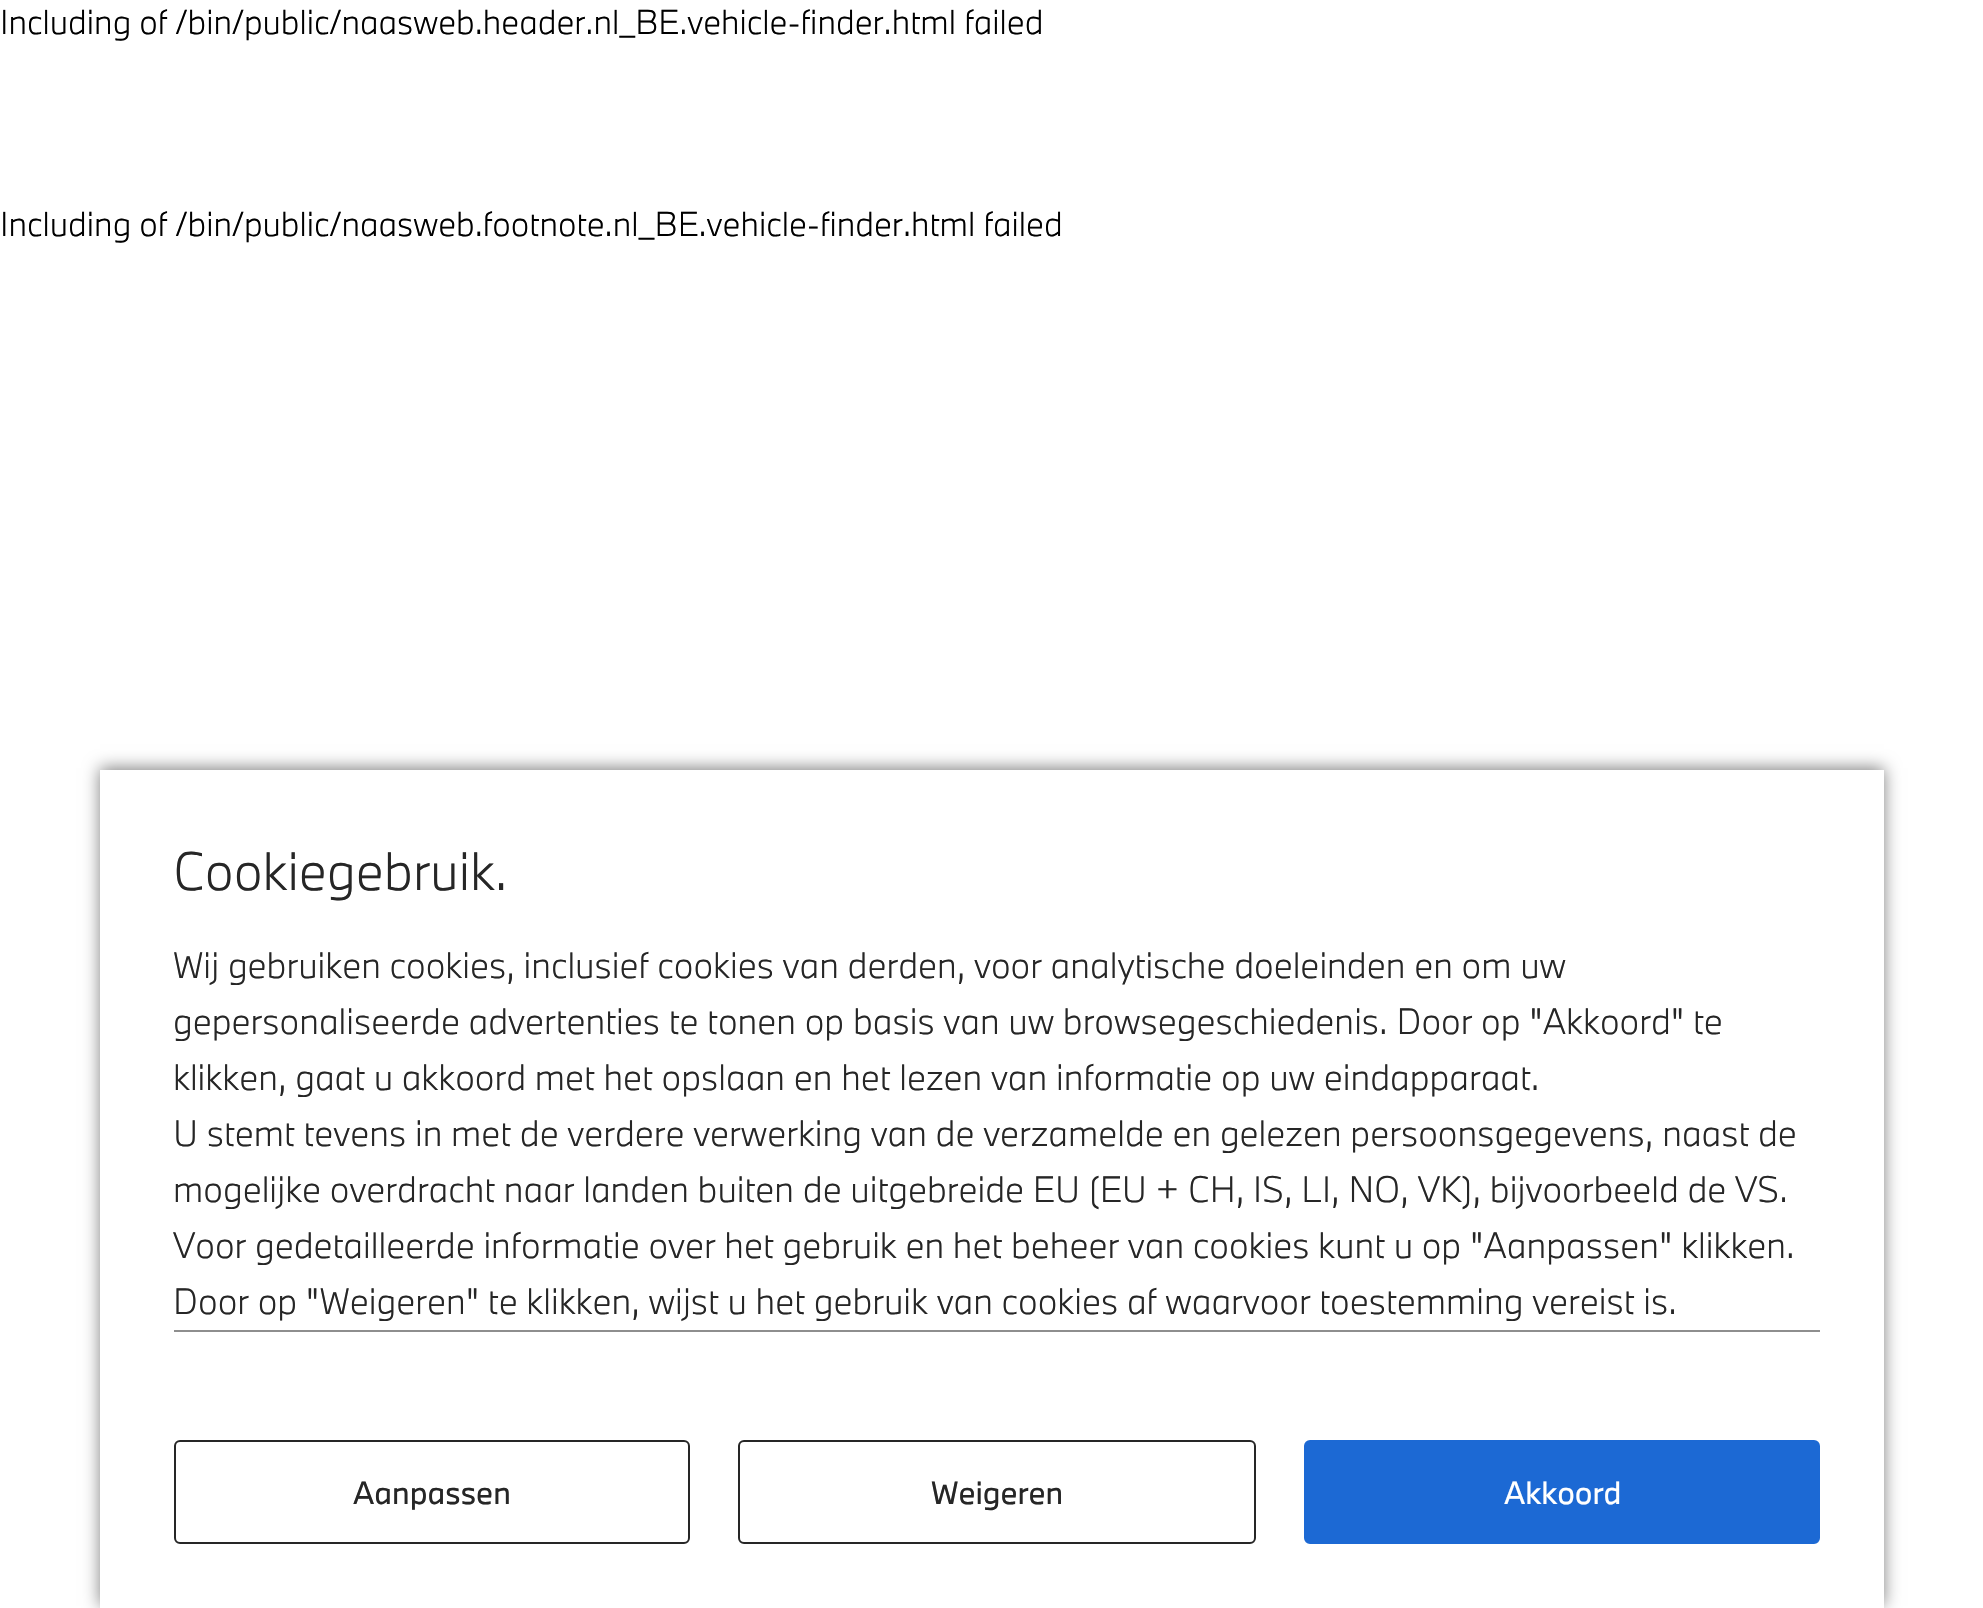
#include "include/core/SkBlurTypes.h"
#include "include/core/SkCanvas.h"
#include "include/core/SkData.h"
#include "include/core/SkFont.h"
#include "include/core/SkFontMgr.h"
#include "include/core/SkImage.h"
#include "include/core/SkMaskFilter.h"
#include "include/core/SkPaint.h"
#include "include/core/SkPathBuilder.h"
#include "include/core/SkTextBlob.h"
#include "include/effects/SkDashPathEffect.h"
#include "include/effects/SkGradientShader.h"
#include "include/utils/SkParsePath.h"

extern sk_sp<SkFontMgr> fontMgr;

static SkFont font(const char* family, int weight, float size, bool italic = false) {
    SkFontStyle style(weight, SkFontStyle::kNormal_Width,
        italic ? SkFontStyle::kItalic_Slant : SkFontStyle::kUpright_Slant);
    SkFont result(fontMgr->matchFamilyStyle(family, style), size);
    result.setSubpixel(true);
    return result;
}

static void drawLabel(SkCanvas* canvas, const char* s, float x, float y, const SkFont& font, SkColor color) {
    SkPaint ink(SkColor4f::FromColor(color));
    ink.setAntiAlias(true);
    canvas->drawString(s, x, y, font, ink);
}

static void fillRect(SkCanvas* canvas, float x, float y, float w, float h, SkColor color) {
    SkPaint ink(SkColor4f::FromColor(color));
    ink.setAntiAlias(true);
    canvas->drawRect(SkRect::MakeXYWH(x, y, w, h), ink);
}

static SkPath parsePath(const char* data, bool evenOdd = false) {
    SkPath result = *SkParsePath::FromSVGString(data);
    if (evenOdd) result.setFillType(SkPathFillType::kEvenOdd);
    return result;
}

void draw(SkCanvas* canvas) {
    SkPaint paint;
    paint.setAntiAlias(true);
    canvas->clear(0xFFFFFFFF);
    SkFont font1 = font("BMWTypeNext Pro", 300, 32);
    drawLabel(canvas, "Including of /bin/public/naasweb.header.nl_BE.vehicle-finder.html failed", 0, 34, font1, 0xFF000000);
    drawLabel(canvas, "Including of /bin/public/naasweb.footnote.nl_BE.vehicle-finder.html failed", 0, 236, font1, 0xFF000000);
    canvas->save();
    canvas->clipPath(parsePath("M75 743H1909V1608H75ZM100 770H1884V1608H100Z", true), true);
    paint.setColor(0x80000000);
    paint.setMaskFilter(SkMaskFilter::MakeBlur(kNormal_SkBlurStyle, 8));
    canvas->drawRect(SkRect::MakeXYWH(100, 768, 1784, 838), paint);
    paint.setMaskFilter(nullptr);
    canvas->restore();
    SkFont font2 = font("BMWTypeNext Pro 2", 300, 50);
    drawLabel(canvas, "Cookiegebruik.", 173, 890, font2, 0xFF262626);
    SkFont font3 = font("BMWTypeNext Pro 2", 300, 34);
    drawLabel(canvas, "Wij gebruiken cookies, inclusief cookies van derden, voor analytische doeleinden en om uw", 173, 978, font3, 0xFF262626);
    drawLabel(canvas, "gepersonaliseerde advertenties te tonen op basis van uw browsegeschiedenis. Door op \"Akkoord\" te", 173, 1034, font3, 0xFF262626);
    drawLabel(canvas, "klikken, gaat u akkoord met het opslaan en het lezen van informatie op uw eindapparaat.", 173, 1090, font3, 0xFF262626);
    drawLabel(canvas, "U stemt tevens in met de verdere verwerking van de verzamelde en gelezen persoonsgegevens, naast de", 173, 1146, font3, 0xFF262626);
    drawLabel(canvas, "mogelijke overdracht naar landen buiten de uitgebreide EU (EU + CH, IS, LI, NO, VK), bijvoorbeeld de VS.", 173, 1202, font3, 0xFF262626);
    drawLabel(canvas, "Voor gedetailleerde informatie over het gebruik en het beheer van cookies kunt u op \"Aanpassen\" klikken.", 173, 1258, font3, 0xFF262626);
    drawLabel(canvas, "Door op \"Weigeren\" te klikken, wijst u het gebruik van cookies af waarvoor toestemming vereist is.", 173, 1314, font3, 0xFF262626);
    fillRect(canvas, 174, 1330, 1646, 2, 0xFF8E8E8E);
    paint.setStroke(true);
    paint.setStrokeWidth(2);
    paint.setColor(0xFF262626);
    canvas->drawRoundRect(SkRect::MakeXYWH(175, 1441, 514, 102), 5, 5, paint);
    SkFont font4 = font("BMWTypeNext Pro", 400, 30);
    drawLabel(canvas, "Aanpassen", 353, 1504, font4, 0xFF262626);
    canvas->drawRoundRect(SkRect::MakeXYWH(739, 1441, 516, 102), 5, 5, paint);
    drawLabel(canvas, "Weigeren", 931, 1504, font4, 0xFF262626);
    paint.setStroke(false);
    paint.setColor(0xFF1C69D4);
    canvas->drawRoundRect(SkRect::MakeXYWH(1305, 1441, 514, 102), 5, 5, paint);
    paint.setStroke(true);
    canvas->drawRoundRect(SkRect::MakeXYWH(1305, 1441, 514, 102), 5, 5, paint);
    drawLabel(canvas, "Akkoord", 1504, 1504, font4, 0xFFFFFFFF);
}
